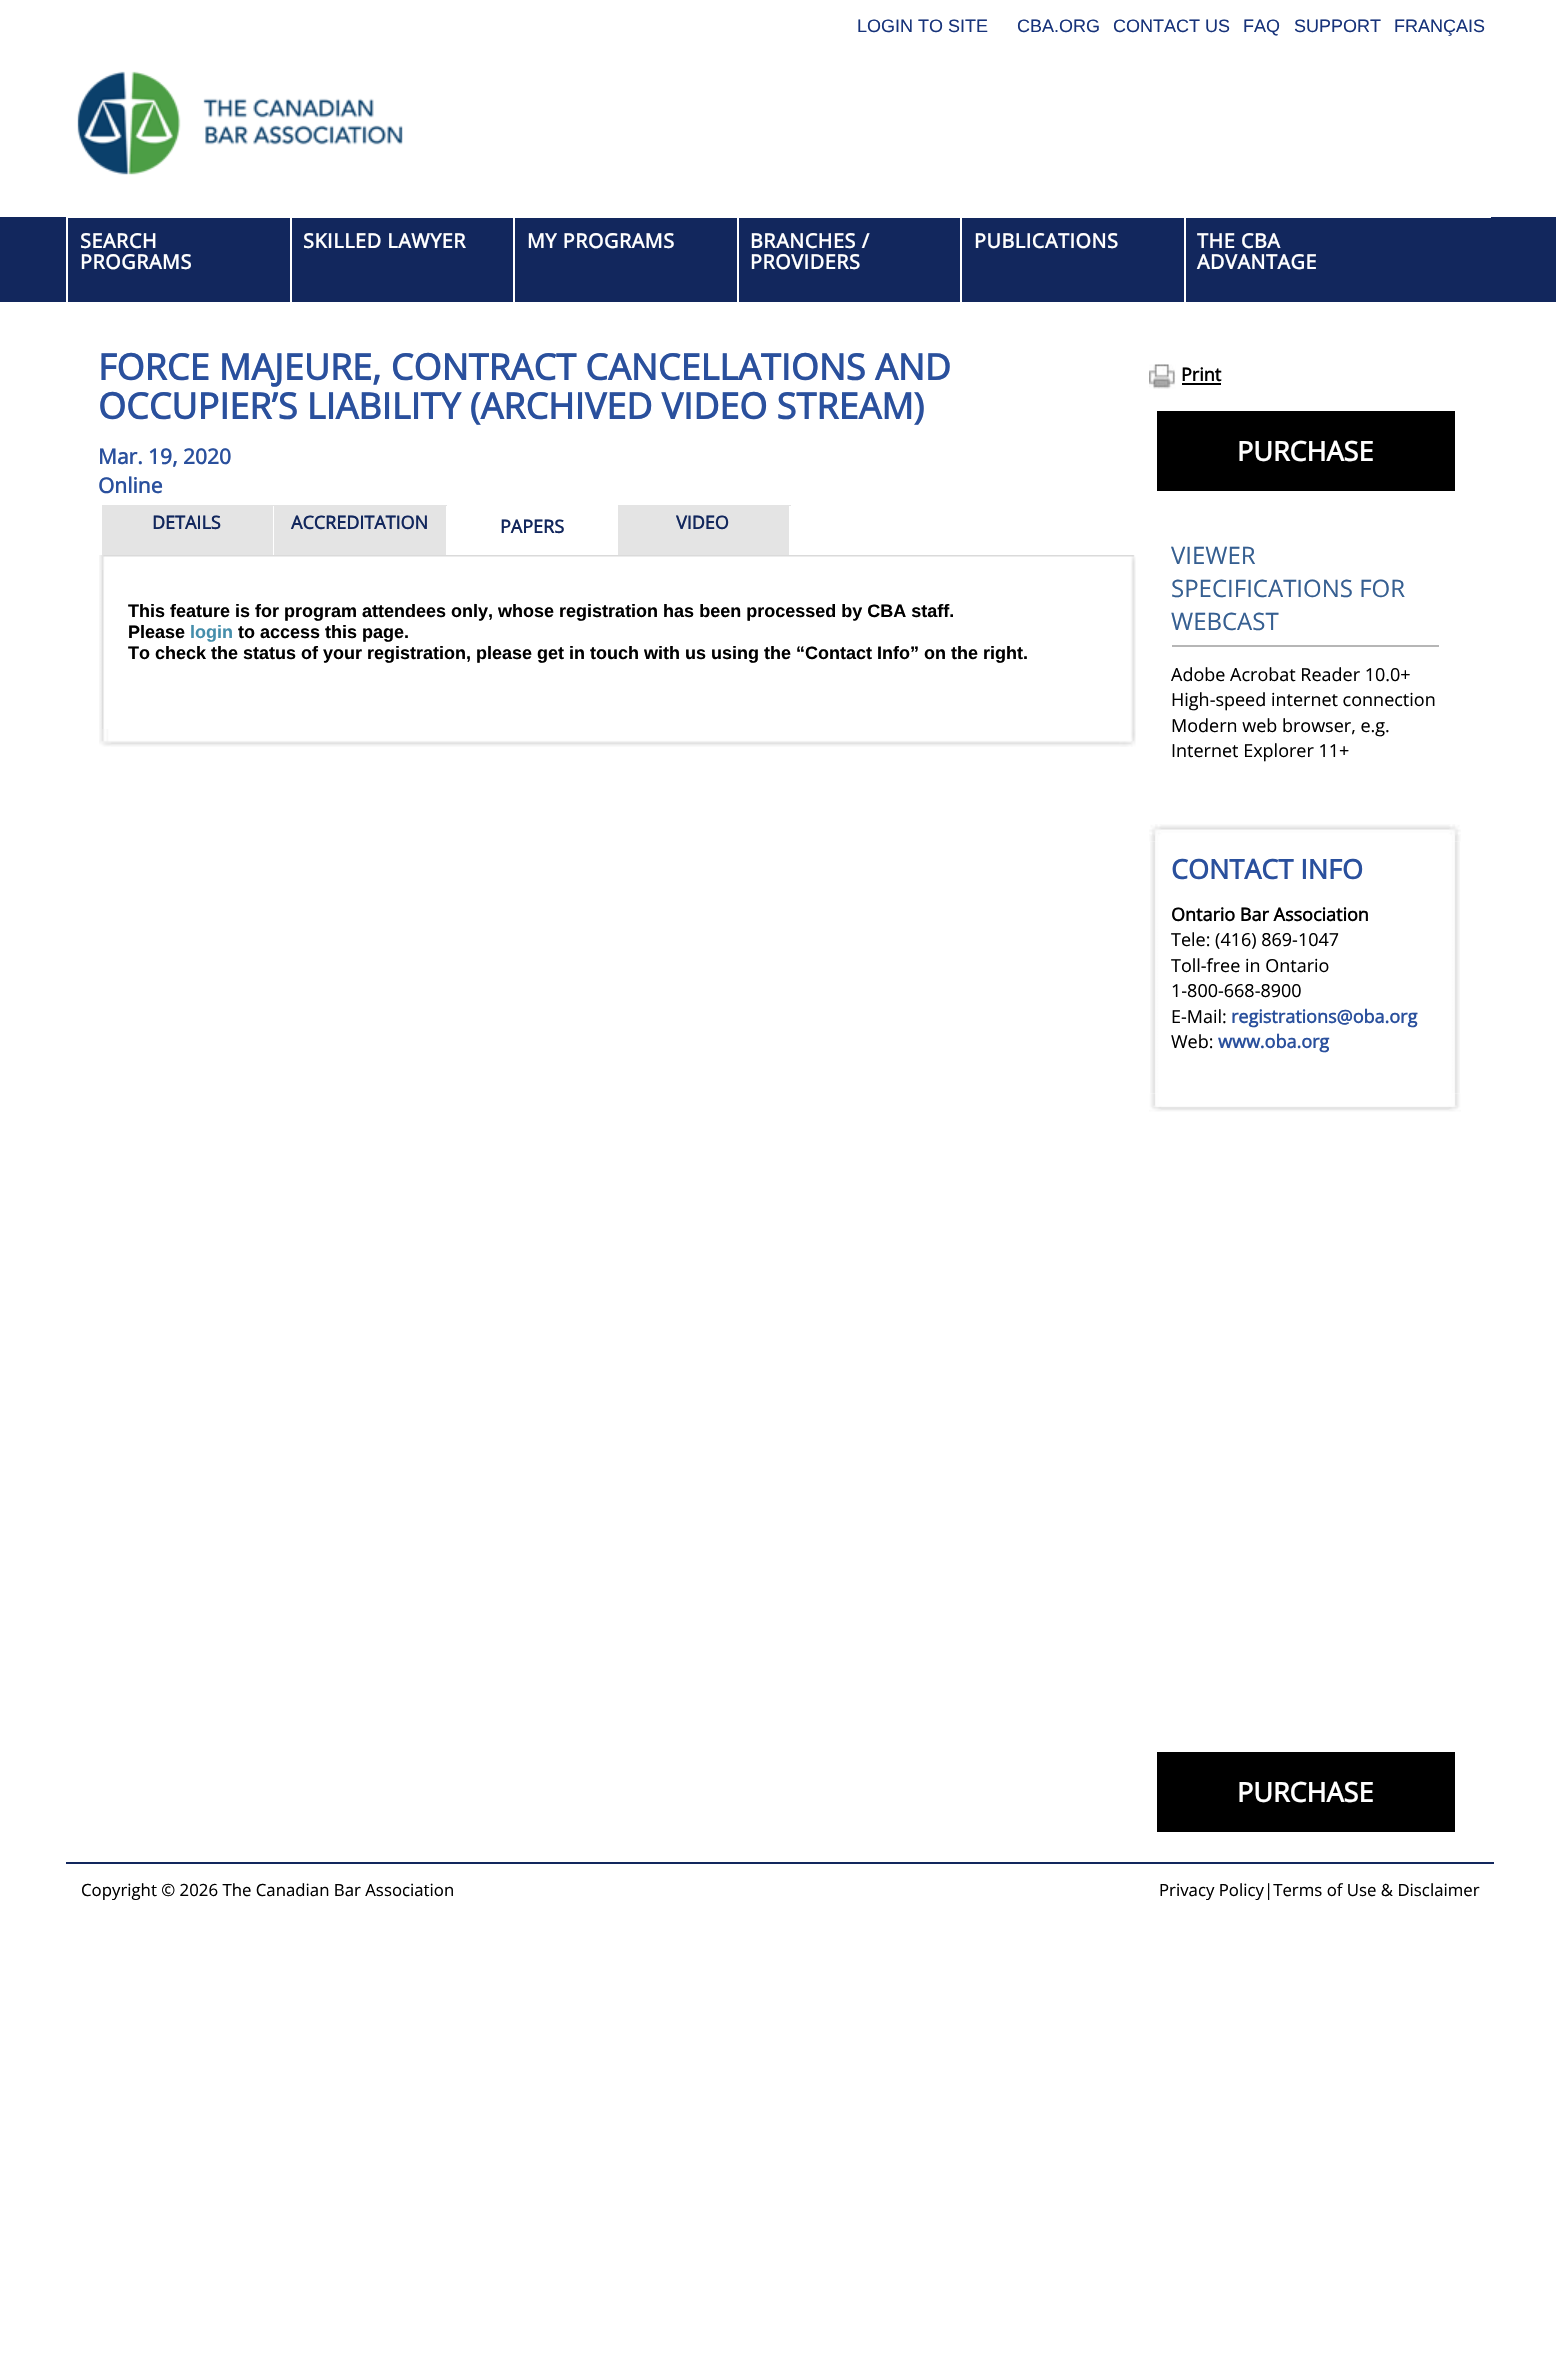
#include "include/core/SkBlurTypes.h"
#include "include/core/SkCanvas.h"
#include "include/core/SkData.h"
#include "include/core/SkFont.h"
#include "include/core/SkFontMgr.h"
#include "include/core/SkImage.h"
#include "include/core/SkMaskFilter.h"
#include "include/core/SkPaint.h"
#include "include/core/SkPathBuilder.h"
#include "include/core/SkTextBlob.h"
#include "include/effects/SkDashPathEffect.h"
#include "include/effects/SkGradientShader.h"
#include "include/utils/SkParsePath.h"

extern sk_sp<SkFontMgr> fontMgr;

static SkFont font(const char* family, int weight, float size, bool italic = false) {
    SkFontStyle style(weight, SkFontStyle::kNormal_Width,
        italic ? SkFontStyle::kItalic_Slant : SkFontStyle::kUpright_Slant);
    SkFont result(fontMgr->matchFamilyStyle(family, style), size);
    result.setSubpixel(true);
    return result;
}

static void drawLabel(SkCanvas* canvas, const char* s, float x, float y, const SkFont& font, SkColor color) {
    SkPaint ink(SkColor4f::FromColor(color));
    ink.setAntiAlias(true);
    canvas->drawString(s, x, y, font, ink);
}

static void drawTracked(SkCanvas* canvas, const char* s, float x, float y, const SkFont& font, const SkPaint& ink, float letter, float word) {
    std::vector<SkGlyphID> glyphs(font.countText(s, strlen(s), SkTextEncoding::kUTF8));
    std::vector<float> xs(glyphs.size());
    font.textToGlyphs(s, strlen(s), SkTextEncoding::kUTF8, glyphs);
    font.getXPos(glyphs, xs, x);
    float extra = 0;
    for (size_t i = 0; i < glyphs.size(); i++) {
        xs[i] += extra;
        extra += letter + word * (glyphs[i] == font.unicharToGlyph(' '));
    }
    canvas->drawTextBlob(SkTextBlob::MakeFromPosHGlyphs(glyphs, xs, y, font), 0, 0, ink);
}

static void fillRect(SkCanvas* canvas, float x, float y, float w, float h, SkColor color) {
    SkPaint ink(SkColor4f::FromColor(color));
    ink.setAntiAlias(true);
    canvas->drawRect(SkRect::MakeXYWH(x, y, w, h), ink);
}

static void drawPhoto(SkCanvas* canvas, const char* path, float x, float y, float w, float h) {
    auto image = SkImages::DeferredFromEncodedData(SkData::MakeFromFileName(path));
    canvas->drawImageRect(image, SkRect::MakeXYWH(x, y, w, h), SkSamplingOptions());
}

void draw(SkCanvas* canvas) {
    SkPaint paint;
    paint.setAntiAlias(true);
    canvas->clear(0xFFFFFFFF);
    fillRect(canvas, 0, 217, 1556, 85, 0xFF12275D);
    fillRect(canvas, 66, 217, 1425, 85, 0xFFFFFFFF);
    SkFont font1 = font("Liberation Sans", 400, 18);
    drawLabel(canvas, "LOGIN TO SITE", 857, 32, font1, 0xFF17337A);
    drawLabel(canvas, "CBA.ORG", 1017, 32, font1, 0xFF17337A);
    drawLabel(canvas, "CONTACT US", 1113, 32, font1, 0xFF17337A);
    drawLabel(canvas, "FAQ", 1243, 32, font1, 0xFF17337A);
    drawLabel(canvas, "SUPPORT", 1294, 32, font1, 0xFF17337A);
    drawLabel(canvas, "FRANÇAIS", 1394, 32, font1, 0xFF17337A);
    drawPhoto(canvas, "assets/img1.png", 77, 71, 326, 104);
    fillRect(canvas, 68, 218, 1423, 84, 0xFF12275D);
    SkFont font2 = font("Open Sans", 700, 19.75f);
    paint.setColor(0xFFFFFFFF);
    drawTracked(canvas, "SEARCH", 80, 248, font2, paint, 0.6f, 0);
    drawTracked(canvas, "PROGRAMS", 80, 269, font2, paint, 0.6f, 0);
    fillRect(canvas, 290, 218, 2, 84, 0xFFFFFFFF);
    drawTracked(canvas, "SKILLED LAWYER", 303, 248, font2, paint, 0.6f, 0);
    fillRect(canvas, 513, 218, 2, 84, 0xFFFFFFFF);
    drawTracked(canvas, "MY PROGRAMS", 527, 248, font2, paint, 0.6f, 0);
    fillRect(canvas, 737, 218, 2, 84, 0xFFFFFFFF);
    drawTracked(canvas, "BRANCHES /", 750, 248, font2, paint, 0.6f, 0);
    drawTracked(canvas, "PROVIDERS", 750, 269, font2, paint, 0.6f, 0);
    fillRect(canvas, 960, 218, 2, 84, 0xFFFFFFFF);
    drawTracked(canvas, "PUBLICATIONS", 974, 248, font2, paint, 0.6f, 0);
    fillRect(canvas, 1184, 218, 2, 84, 0xFFFFFFFF);
    drawTracked(canvas, "THE CBA", 1197, 248, font2, paint, 0.6f, 0);
    drawTracked(canvas, "ADVANTAGE", 1197, 269, font2, paint, 0.6f, 0);
    SkFont font3 = font("Open Sans", 700, 36);
    drawLabel(canvas, "FORCE MAJEURE, CONTRACT CANCELLATIONS AND", 98, 380, font3, 0xFF2A509D);
    drawLabel(canvas, "OCCUPIER’S LIABILITY (ARCHIVED VIDEO STREAM)", 98, 419, font3, 0xFF2A509D);
    SkFont font4 = font("Open Sans", 700, 21);
    drawLabel(canvas, "Mar. 19, 2020", 98, 464, font4, 0xFF2A509D);
    drawLabel(canvas, "Online", 98, 493, font4, 0xFF2A509D);
    fillRect(canvas, 102, 505, 345, 50, 0xFFE4E4E4);
    fillRect(canvas, 273, 506, 1, 49, 0xFFFFFFFF);
    SkFont font5 = font("Open Sans", 700, 18);
    drawLabel(canvas, "DETAILS", 152, 529, font5, 0xFF12275D);
    fillRect(canvas, 446, 506, 1, 49, 0xFFFFFFFF);
    drawLabel(canvas, "ACCREDITATION", 291, 529, font5, 0xFF12275D);
    drawLabel(canvas, "PAPERS", 500, 533, font5, 0xFF12275D);
    fillRect(canvas, 618, 505, 173, 50, 0xFFE4E4E4);
    fillRect(canvas, 789, 506, 2, 49, 0xFFFFFFFF);
    drawLabel(canvas, "VIDEO", 676, 529, font5, 0xFF12275D);
    drawPhoto(canvas, "assets/img2.png", 99, 555, 1037, 15);
    drawPhoto(canvas, "assets/img3.png", 99, 570, 1037, 159);
    SkFont font6 = font("Liberation Sans", 700, 18);
    drawLabel(canvas, "This feature is for program attendees only, whose registration has been processed by CBA staff.", 128, 617, font6, 0xFF000000);
    drawLabel(canvas, "Please", 128, 638, font6, 0xFF000000);
    drawLabel(canvas, "login", 190, 638, font6, 0xFF458EAB);
    drawLabel(canvas, "to access this page.", 238, 638, font6, 0xFF000000);
    drawLabel(canvas, "To check the status of your registration, please get in touch with us using the “Contact Info” on the right.", 128, 659, font6, 0xFF000000);
    drawPhoto(canvas, "assets/img4.png", 99, 729, 1037, 18);
    drawPhoto(canvas, "assets/img5.png", 1149, 364, 27, 25);
    drawLabel(canvas, "Print", 1181, 381, font5, 0xFF000000);
    fillRect(canvas, 1182, 383, 39, 2, 0xFF000000);
    fillRect(canvas, 1157, 411, 298, 80, 0xFF000000);
    SkFont font7 = font("Open Sans", 700, 27);
    drawLabel(canvas, "PURCHASE", 1237, 461, font7, 0xFFFFFFFF);
    fillRect(canvas, 1172, 645, 267, 2, 0xFFB6B6B6);
    SkFont font8 = font("Open Sans", 400, 24);
    drawLabel(canvas, "VIEWER", 1171, 564, font8, 0xFF365F91);
    drawLabel(canvas, "SPECIFICATIONS FOR", 1171, 597, font8, 0xFF365F91);
    drawLabel(canvas, "WEBCAST", 1171, 630, font8, 0xFF365F91);
    SkFont font9 = font("Open Sans", 400, 18);
    drawLabel(canvas, "Adobe Acrobat Reader 10.0+", 1171, 681, font9, 0xFF000000);
    drawLabel(canvas, "High-speed internet connection", 1171, 706, font9, 0xFF000000);
    drawLabel(canvas, "Modern web browser, e.g.", 1171, 732, font9, 0xFF000000);
    drawLabel(canvas, "Internet Explorer 11+", 1171, 757, font9, 0xFF000000);
    drawPhoto(canvas, "assets/img6.png", 1149, 824, 312, 18);
    drawPhoto(canvas, "assets/img7.png", 1150, 841, 310, 253);
    drawLabel(canvas, "CONTACT INFO", 1171, 879, font7, 0xFF2A509D);
    drawLabel(canvas, "Ontario Bar Association", 1171, 921, font5, 0xFF000000);
    drawLabel(canvas, "Tele: (416) 869-1047", 1171, 946, font9, 0xFF000000);
    drawLabel(canvas, "Toll-free in Ontario", 1171, 972, font9, 0xFF000000);
    drawLabel(canvas, "1-800-668-8900", 1171, 997, font9, 0xFF000000);
    drawLabel(canvas, "E-Mail:", 1171, 1023, font9, 0xFF000000);
    drawLabel(canvas, "registrations@oba.org", 1231, 1023, font5, 0xFF2A509D);
    drawLabel(canvas, "Web:", 1171, 1048, font9, 0xFF000000);
    drawLabel(canvas, "www.oba.org", 1218, 1048, font5, 0xFF2A509D);
    drawPhoto(canvas, "assets/img8.png", 1149, 1093, 312, 19);
    fillRect(canvas, 1157, 1752, 298, 80, 0xFF000000);
    drawLabel(canvas, "PURCHASE", 1237, 1802, font7, 0xFFFFFFFF);
    fillRect(canvas, 66, 1862, 1428, 2, 0xFF12275D);
    SkFont font10 = font("Open Sans", 400, 16.8f);
    drawLabel(canvas, "Copyright © 2026 The Canadian Bar Association", 81, 1896, font10, 0xFF000000);
    drawLabel(canvas, "Privacy Policy|Terms of Use & Disclaimer", 1159, 1896, font10, 0xFF000000);
}
